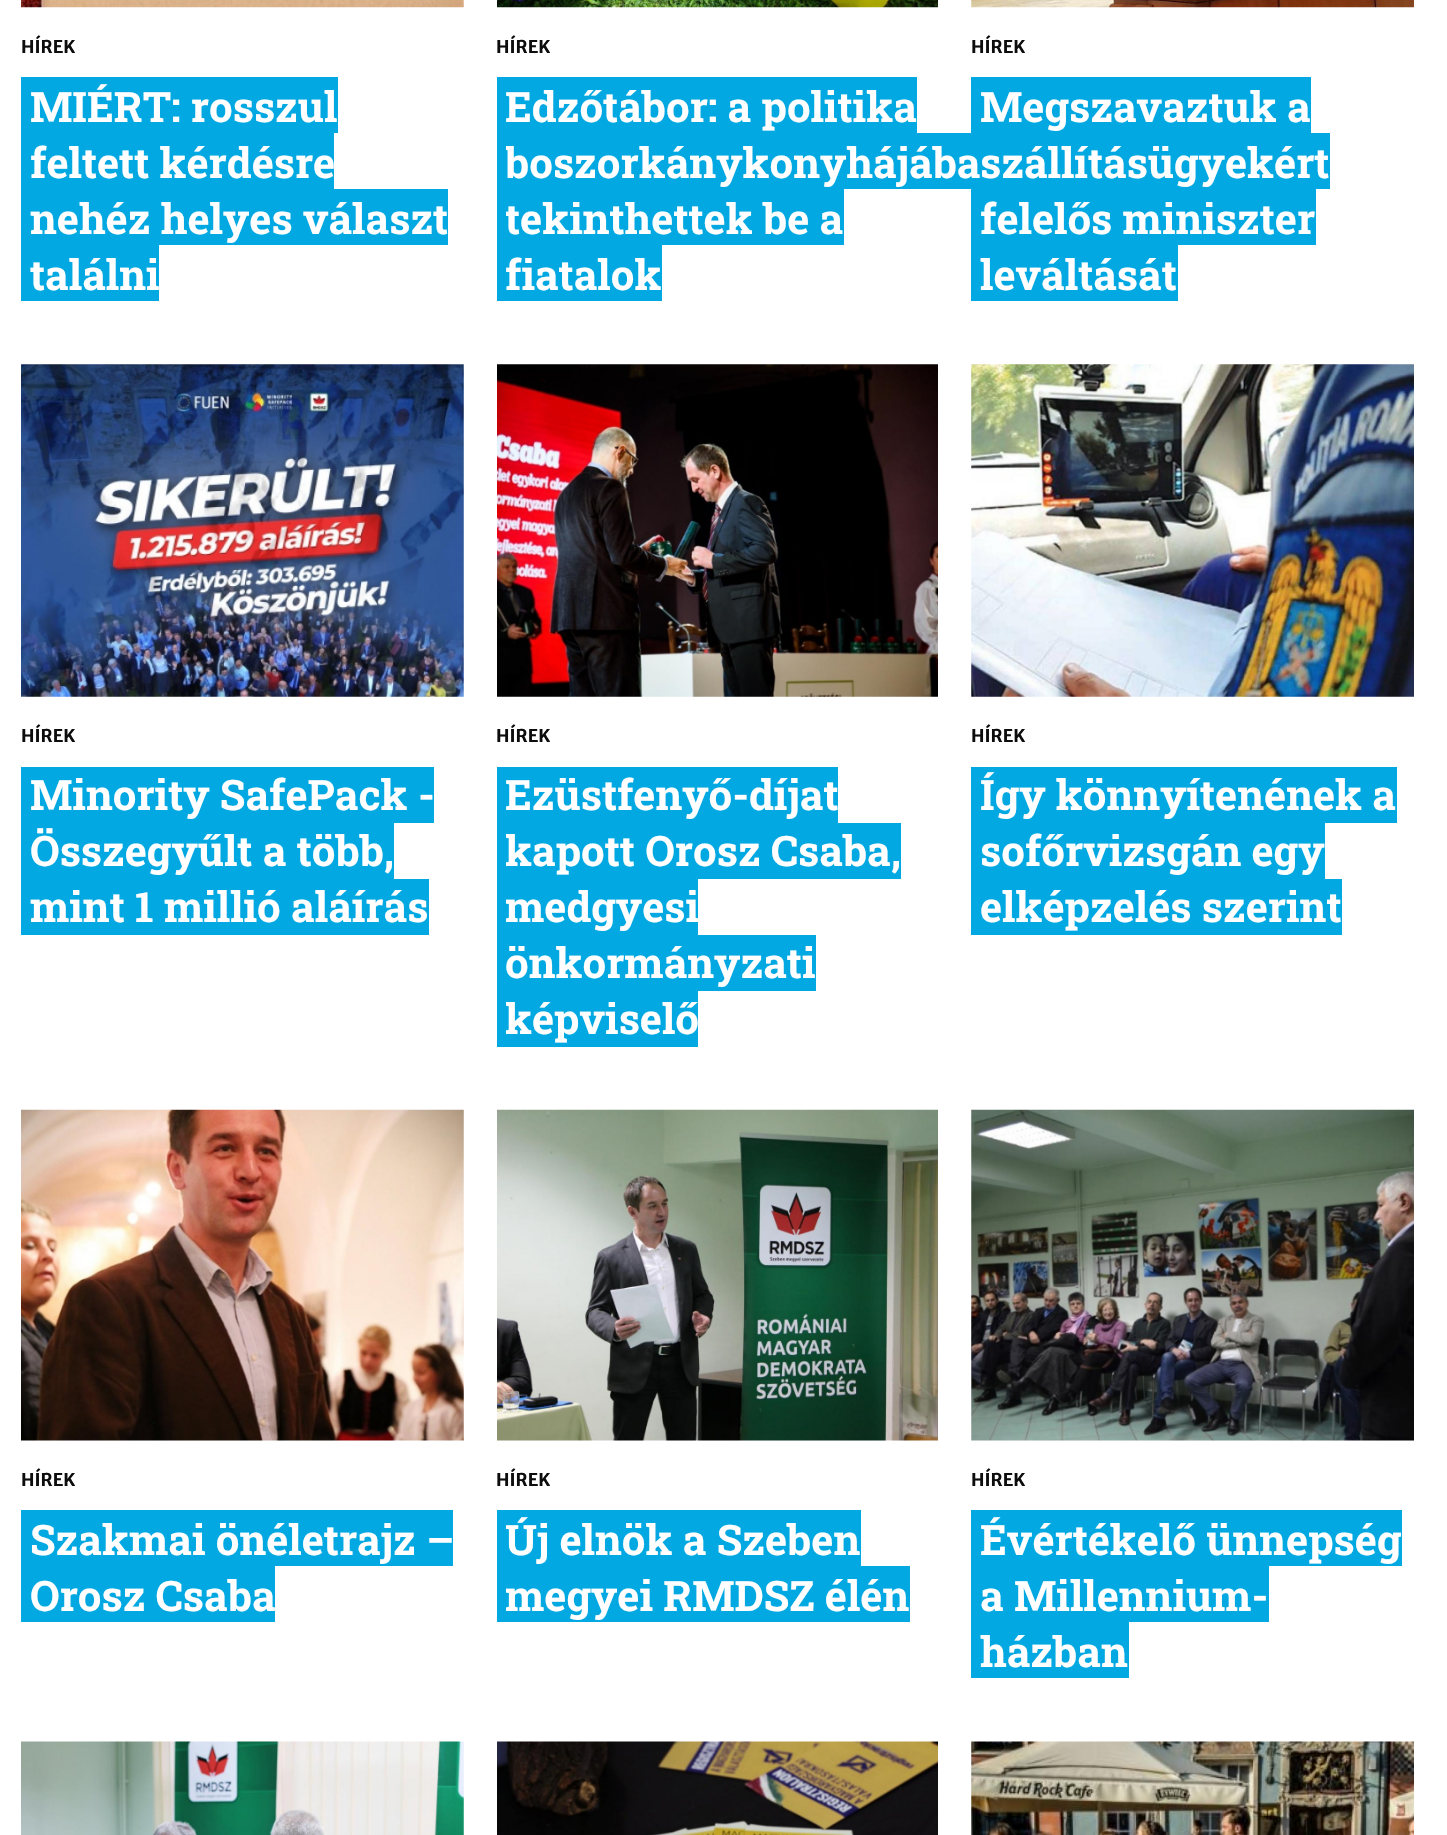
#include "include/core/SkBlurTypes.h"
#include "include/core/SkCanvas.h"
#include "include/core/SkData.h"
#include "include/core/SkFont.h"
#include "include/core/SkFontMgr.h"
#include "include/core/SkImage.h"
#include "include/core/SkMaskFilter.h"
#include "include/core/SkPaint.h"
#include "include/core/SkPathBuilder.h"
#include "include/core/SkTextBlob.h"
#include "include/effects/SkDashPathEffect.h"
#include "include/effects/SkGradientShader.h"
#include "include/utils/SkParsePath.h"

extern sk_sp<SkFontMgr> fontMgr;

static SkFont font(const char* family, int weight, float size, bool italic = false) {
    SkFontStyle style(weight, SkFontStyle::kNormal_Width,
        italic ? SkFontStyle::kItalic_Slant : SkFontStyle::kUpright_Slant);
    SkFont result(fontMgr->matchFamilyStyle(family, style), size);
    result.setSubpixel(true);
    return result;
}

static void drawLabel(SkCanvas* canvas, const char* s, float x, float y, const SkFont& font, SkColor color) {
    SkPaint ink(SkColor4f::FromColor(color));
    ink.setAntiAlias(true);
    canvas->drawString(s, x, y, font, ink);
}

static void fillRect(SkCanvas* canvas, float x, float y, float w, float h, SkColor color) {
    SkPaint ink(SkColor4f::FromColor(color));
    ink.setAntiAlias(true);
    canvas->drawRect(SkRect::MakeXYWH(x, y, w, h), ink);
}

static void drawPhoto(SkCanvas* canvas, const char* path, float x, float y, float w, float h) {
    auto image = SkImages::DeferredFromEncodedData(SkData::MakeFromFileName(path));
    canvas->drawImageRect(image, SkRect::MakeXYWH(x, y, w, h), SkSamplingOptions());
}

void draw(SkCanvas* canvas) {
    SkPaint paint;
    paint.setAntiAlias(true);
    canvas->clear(0xFFFFFFFF);
    drawPhoto(canvas, "assets/img1.png", 21, 0, 443, 8);
    SkFont font1 = font("Merriweather Sans", 700, 17.5f);
    drawLabel(canvas, "HÍREK", 21, 53, font1, 0xFF0D0D0D);
    fillRect(canvas, 21, 77, 9, 224, 0xFF01A8E1);
    fillRect(canvas, 30, 77, 308, 56, 0xFF01A8E1);
    SkFont font2 = font("Roboto Slab", 700, 42);
    drawLabel(canvas, "MIÉRT: rosszul", 30, 122, font2, 0xFFFFFFFF);
    fillRect(canvas, 30, 133, 304, 56, 0xFF01A8E1);
    drawLabel(canvas, "feltett kérdésre", 30, 178, font2, 0xFFFFFFFF);
    fillRect(canvas, 30, 189, 418, 56, 0xFF01A8E1);
    drawLabel(canvas, "nehéz helyes választ", 30, 234, font2, 0xFFFFFFFF);
    fillRect(canvas, 30, 245, 129, 56, 0xFF01A8E1);
    drawLabel(canvas, "találni", 30, 290, font2, 0xFFFFFFFF);
    drawPhoto(canvas, "assets/img2.png", 497, 0, 441, 8);
    drawLabel(canvas, "HÍREK", 496, 53, font1, 0xFF0D0D0D);
    fillRect(canvas, 497, 77, 9, 224, 0xFF01A8E1);
    fillRect(canvas, 506, 77, 411, 56, 0xFF01A8E1);
    drawLabel(canvas, "Edzőtábor: a politika", 505, 122, font2, 0xFFFFFFFF);
    fillRect(canvas, 506, 133, 465, 56, 0xFF01A8E1);
    fillRect(canvas, 971, 77, 9, 224, 0xFF01A8E1);
    canvas->save();
    canvas->clipRect(SkRect::MakeXYWH(506, 77, 483, 224));
    drawLabel(canvas, "boszorkánykonyhájába", 505, 178, font2, 0xFFFFFFFF);
    canvas->restore();
    fillRect(canvas, 506, 189, 338, 56, 0xFF01A8E1);
    canvas->save();
    canvas->clipRect(SkRect::MakeXYWH(506, 77, 483, 224));
    drawLabel(canvas, "tekinthettek be a", 505, 234, font2, 0xFFFFFFFF);
    canvas->restore();
    fillRect(canvas, 506, 245, 156, 56, 0xFF01A8E1);
    canvas->save();
    canvas->clipRect(SkRect::MakeXYWH(506, 77, 483, 224));
    drawLabel(canvas, "fiatalok", 505, 290, font2, 0xFFFFFFFF);
    canvas->restore();
    drawPhoto(canvas, "assets/img3.png", 971, 0, 443, 8);
    drawLabel(canvas, "HÍREK", 971, 53, font1, 0xFF0D0D0D);
    fillRect(canvas, 980, 77, 331, 56, 0xFF01A8E1);
    drawLabel(canvas, "Megszavaztuk a", 980, 122, font2, 0xFFFFFFFF);
    fillRect(canvas, 980, 133, 350, 56, 0xFF01A8E1);
    drawLabel(canvas, "szállításügyekért", 980, 178, font2, 0xFFFFFFFF);
    fillRect(canvas, 980, 189, 336, 56, 0xFF01A8E1);
    drawLabel(canvas, "felelős miniszter", 980, 234, font2, 0xFFFFFFFF);
    fillRect(canvas, 980, 245, 198, 56, 0xFF01A8E1);
    drawLabel(canvas, "leváltását", 980, 290, font2, 0xFFFFFFFF);
    drawPhoto(canvas, "assets/img4.png", 21, 364, 443, 333);
    drawLabel(canvas, "HÍREK", 21, 742, font1, 0xFF0D0D0D);
    fillRect(canvas, 21, 767, 9, 168, 0xFF01A8E1);
    fillRect(canvas, 30, 767, 404, 56, 0xFF01A8E1);
    drawLabel(canvas, "Minority SafePack -", 30, 810, font2, 0xFFFFFFFF);
    fillRect(canvas, 30, 823, 364, 56, 0xFF01A8E1);
    drawLabel(canvas, "Összegyűlt a több,", 30, 866, font2, 0xFFFFFFFF);
    fillRect(canvas, 30, 879, 399, 56, 0xFF01A8E1);
    drawLabel(canvas, "mint 1 millió aláírás", 30, 922, font2, 0xFFFFFFFF);
    drawPhoto(canvas, "assets/img5.png", 497, 364, 441, 333);
    drawLabel(canvas, "HÍREK", 496, 742, font1, 0xFF0D0D0D);
    fillRect(canvas, 497, 767, 9, 280, 0xFF01A8E1);
    fillRect(canvas, 506, 767, 332, 56, 0xFF01A8E1);
    drawLabel(canvas, "Ezüstfenyő-díjat", 505, 810, font2, 0xFFFFFFFF);
    fillRect(canvas, 506, 823, 395, 56, 0xFF01A8E1);
    canvas->save();
    canvas->clipRect(SkRect::MakeXYWH(506, 767, 432, 280));
    drawLabel(canvas, "kapott Orosz Csaba,", 505, 866, font2, 0xFFFFFFFF);
    canvas->restore();
    fillRect(canvas, 506, 879, 192, 56, 0xFF01A8E1);
    canvas->save();
    canvas->clipRect(SkRect::MakeXYWH(506, 767, 432, 280));
    drawLabel(canvas, "medgyesi", 505, 922, font2, 0xFFFFFFFF);
    canvas->restore();
    fillRect(canvas, 506, 935, 310, 56, 0xFF01A8E1);
    drawLabel(canvas, "önkormányzati", 505, 978, font2, 0xFFFFFFFF);
    fillRect(canvas, 506, 991, 192, 56, 0xFF01A8E1);
    canvas->save();
    canvas->clipRect(SkRect::MakeXYWH(506, 767, 432, 280));
    drawLabel(canvas, "képviselő", 505, 1034, font2, 0xFFFFFFFF);
    canvas->restore();
    drawPhoto(canvas, "assets/img6.png", 971, 364, 443, 333);
    drawLabel(canvas, "HÍREK", 971, 742, font1, 0xFF0D0D0D);
    fillRect(canvas, 971, 767, 9, 168, 0xFF01A8E1);
    fillRect(canvas, 980, 767, 417, 56, 0xFF01A8E1);
    drawLabel(canvas, "Így könnyítenének a", 980, 810, font2, 0xFFFFFFFF);
    fillRect(canvas, 980, 823, 345, 56, 0xFF01A8E1);
    drawLabel(canvas, "sofőrvizsgán egy", 980, 866, font2, 0xFFFFFFFF);
    fillRect(canvas, 980, 879, 362, 56, 0xFF01A8E1);
    drawLabel(canvas, "elképzelés szerint", 980, 922, font2, 0xFFFFFFFF);
    drawPhoto(canvas, "assets/img7.png", 21, 1109, 443, 332);
    drawLabel(canvas, "HÍREK", 21, 1486, font1, 0xFF0D0D0D);
    fillRect(canvas, 21, 1510, 9, 112, 0xFF01A8E1);
    fillRect(canvas, 30, 1510, 423, 56, 0xFF01A8E1);
    drawLabel(canvas, "Szakmai önéletrajz –", 30, 1555, font2, 0xFFFFFFFF);
    fillRect(canvas, 30, 1566, 245, 56, 0xFF01A8E1);
    drawLabel(canvas, "Orosz Csaba", 30, 1611, font2, 0xFFFFFFFF);
    drawPhoto(canvas, "assets/img8.png", 497, 1109, 441, 332);
    drawLabel(canvas, "HÍREK", 496, 1486, font1, 0xFF0D0D0D);
    fillRect(canvas, 497, 1510, 9, 112, 0xFF01A8E1);
    fillRect(canvas, 506, 1510, 355, 56, 0xFF01A8E1);
    canvas->save();
    canvas->clipRect(SkRect::MakeXYWH(506, 1510, 432, 112));
    drawLabel(canvas, "Új elnök a Szeben", 505, 1555, font2, 0xFFFFFFFF);
    canvas->restore();
    fillRect(canvas, 506, 1566, 404, 56, 0xFF01A8E1);
    canvas->save();
    canvas->clipRect(SkRect::MakeXYWH(506, 1510, 432, 112));
    drawLabel(canvas, "megyei RMDSZ élén", 505, 1611, font2, 0xFFFFFFFF);
    canvas->restore();
    drawPhoto(canvas, "assets/img9.png", 971, 1109, 443, 332);
    drawLabel(canvas, "HÍREK", 971, 1486, font1, 0xFF0D0D0D);
    fillRect(canvas, 971, 1510, 9, 168, 0xFF01A8E1);
    fillRect(canvas, 980, 1510, 422, 56, 0xFF01A8E1);
    drawLabel(canvas, "Évértékelő ünnepség", 980, 1555, font2, 0xFFFFFFFF);
    fillRect(canvas, 980, 1566, 289, 56, 0xFF01A8E1);
    drawLabel(canvas, "a Millennium-", 980, 1611, font2, 0xFFFFFFFF);
    fillRect(canvas, 980, 1622, 149, 56, 0xFF01A8E1);
    drawLabel(canvas, "házban", 980, 1667, font2, 0xFFFFFFFF);
    drawPhoto(canvas, "assets/img10.png", 21, 1741, 443, 94);
    drawPhoto(canvas, "assets/img11.png", 497, 1741, 441, 94);
    drawPhoto(canvas, "assets/img12.png", 971, 1741, 443, 94);
}
